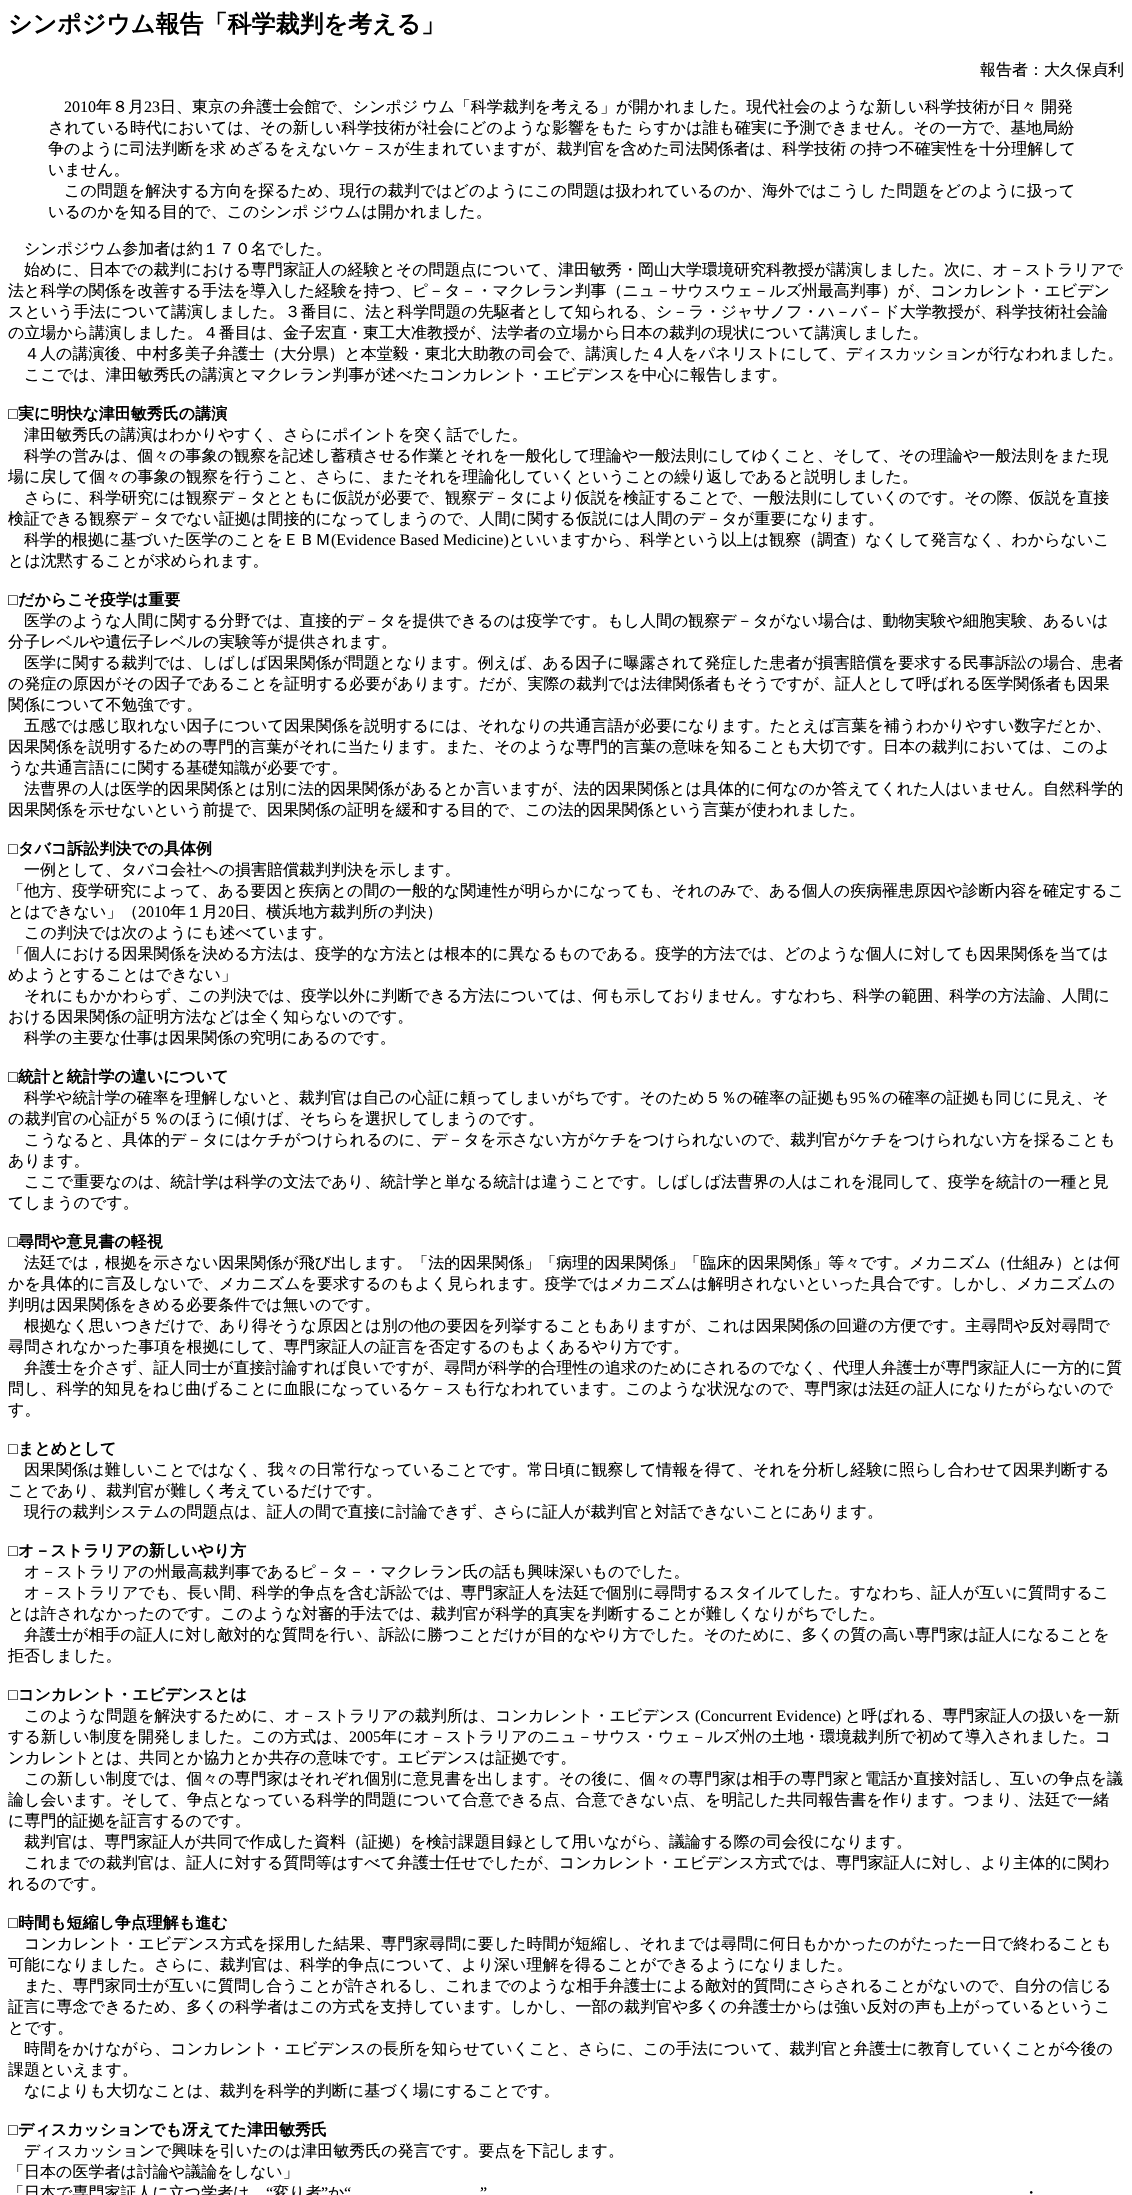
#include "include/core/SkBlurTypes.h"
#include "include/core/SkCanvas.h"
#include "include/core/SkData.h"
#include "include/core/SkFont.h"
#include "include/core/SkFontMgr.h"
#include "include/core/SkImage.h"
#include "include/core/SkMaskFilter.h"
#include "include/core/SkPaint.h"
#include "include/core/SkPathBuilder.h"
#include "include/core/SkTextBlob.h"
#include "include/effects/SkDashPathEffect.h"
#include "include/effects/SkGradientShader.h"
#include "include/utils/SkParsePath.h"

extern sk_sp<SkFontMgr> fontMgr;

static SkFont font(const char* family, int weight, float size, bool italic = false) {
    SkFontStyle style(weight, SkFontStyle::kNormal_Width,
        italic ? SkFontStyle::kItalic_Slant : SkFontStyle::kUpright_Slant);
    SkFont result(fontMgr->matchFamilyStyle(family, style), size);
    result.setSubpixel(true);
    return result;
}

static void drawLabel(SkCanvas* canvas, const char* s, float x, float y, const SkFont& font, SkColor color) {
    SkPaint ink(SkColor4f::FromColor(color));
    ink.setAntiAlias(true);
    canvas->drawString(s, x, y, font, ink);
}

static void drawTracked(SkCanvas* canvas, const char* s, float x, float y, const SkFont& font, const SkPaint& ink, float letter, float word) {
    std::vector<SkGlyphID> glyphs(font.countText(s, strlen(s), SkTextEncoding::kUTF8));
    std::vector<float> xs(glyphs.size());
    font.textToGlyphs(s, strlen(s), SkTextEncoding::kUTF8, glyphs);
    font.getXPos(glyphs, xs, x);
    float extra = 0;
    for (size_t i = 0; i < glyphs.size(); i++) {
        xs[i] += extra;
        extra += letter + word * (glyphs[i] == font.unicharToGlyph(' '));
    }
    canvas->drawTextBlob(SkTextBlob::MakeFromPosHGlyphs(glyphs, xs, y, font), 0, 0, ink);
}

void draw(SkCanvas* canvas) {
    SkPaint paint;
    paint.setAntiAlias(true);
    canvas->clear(0xFFFFFFFF);
    SkFont font1 = font("WenQuanYi Zen Hei", 700, 24);
    drawLabel(canvas, "シンポジウム報告「科学裁判を考える」", 8, 32, font1, 0xFF000000);
    SkFont font2 = font("WenQuanYi Zen Hei", 500, 16);
    drawLabel(canvas, "報告者：大久保貞利", 980, 75, font2, 0xFF000000);
    SkFont font3 = font("Liberation Serif", 400, 16);
    drawLabel(canvas, "2010", 64, 112, font3, 0xFF000000);
    drawLabel(canvas, "年８月", 96, 112, font2, 0xFF000000);
    drawLabel(canvas, "23", 144, 112, font3, 0xFF000000);
    drawLabel(canvas, "日、東京の弁護士会館で、シンポジ", 160, 112, font2, 0xFF000000);
    drawLabel(canvas, "ウム「科学裁判を考える」が開かれました。現代社会のような新しい科学技術が日々", 422, 112, font2, 0xFF000000);
    drawLabel(canvas, "開発", 1041, 112, font2, 0xFF000000);
    drawLabel(canvas, "されている時代においては、その新しい科学技術が社会にどのような影響をもた", 48, 133, font2, 0xFF000000);
    drawLabel(canvas, "らすかは誰も確実に予測できません。その一方で、基地局紛", 637, 133, font2, 0xFF000000);
    drawLabel(canvas, "争のように司法判断を求", 48, 154, font2, 0xFF000000);
    drawLabel(canvas, "めざるをえないケ－スが生まれていますが、裁判官を含めた司法関係者は、科学技術", 230, 154, font2, 0xFF000000);
    drawLabel(canvas, "の持つ不確実性を十分理解して", 850, 154, font2, 0xFF000000);
    drawLabel(canvas, "いません。", 48, 175, font2, 0xFF000000);
    drawLabel(canvas, "この問題を解決する方向を探るため、現行の裁判ではどのようにこの問題は扱われているのか、海外ではこうし", 64, 196, font2, 0xFF000000);
    drawLabel(canvas, "た問題をどのように扱って", 880, 196, font2, 0xFF000000);
    paint.setColor(0xFF000000);
    drawTracked(canvas, "いるのかを知る目的で、このシンポ ジウムは開かれました。", 48, 217, font2, paint, 0, -1);
    drawLabel(canvas, "シンポジウム参加者は約１７０名でした。", 24, 254, font2, 0xFF000000);
    drawLabel(canvas, "始めに、日本での裁判における専門家証人の経験とその問題点について、津田敏秀・岡山大学環境研究科教授が講演しました。次に、オ－ストラリアで", 24, 275, font2, 0xFF000000);
    drawLabel(canvas, "法と科学の関係を改善する手法を導入した経験を持つ、ピ－タ－・マクレラン判事（ニュ－サウスウェ－ルズ州最高判事）が、コンカレント・エビデン", 8, 296, font2, 0xFF000000);
    drawLabel(canvas, "スという手法について講演しました。３番目に、法と科学問題の先駆者として知られる、シ－ラ・ジャサノフ・ハ－バ－ド大学教授が、科学技術社会論", 8, 317, font2, 0xFF000000);
    drawLabel(canvas, "の立場から講演しました。４番目は、金子宏直・東工大准教授が、法学者の立場から日本の裁判の現状について講演しました。", 8, 338, font2, 0xFF000000);
    drawLabel(canvas, "４人の講演後、中村多美子弁護士（大分県）と本堂毅・東北大助教の司会で、講演した４人をパネリストにして、ディスカッションが行なわれました。", 24, 359, font2, 0xFF000000);
    drawLabel(canvas, "ここでは、津田敏秀氏の講演とマクレラン判事が述べたコンカレント・エビデンスを中心に報告します。", 24, 380, font2, 0xFF000000);
    SkFont font4 = font("Liberation Serif", 700, 16);
    drawLabel(canvas, "□", 8, 419, font4, 0xFF000000);
    SkFont font5 = font("WenQuanYi Zen Hei", 700, 16);
    drawLabel(canvas, "実に明快な津田敏秀氏の講演", 18, 419, font5, 0xFF000000);
    drawLabel(canvas, "津田敏秀氏の講演はわかりやすく、さらにポイントを突く話でした。", 24, 440, font2, 0xFF000000);
    drawLabel(canvas, "科学の営みは、個々の事象の観察を記述し蓄積させる作業とそれを一般化して理論や一般法則にしてゆくこと、そして、その理論や一般法則をまた現", 24, 461, font2, 0xFF000000);
    drawLabel(canvas, "場に戻して個々の事象の観察を行うこと、さらに、またそれを理論化していくということの繰り返しであると説明しました。", 8, 482, font2, 0xFF000000);
    drawLabel(canvas, "さらに、科学研究には観察デ－タとともに仮説が必要で、観察デ－タにより仮説を検証することで、一般法則にしていくのです。その際、仮説を直接", 24, 503, font2, 0xFF000000);
    drawLabel(canvas, "検証できる観察デ－タでない証拠は間接的になってしまうので、人間に関する仮説には人間のデ－タが重要になります。", 8, 524, font2, 0xFF000000);
    drawLabel(canvas, "科学的根拠に基づいた医学のことをＥＢＭ", 24, 545, font2, 0xFF000000);
    drawLabel(canvas, "(Evidence Based Medicine)", 331, 545, font3, 0xFF000000);
    drawLabel(canvas, "といいますから、科学という以上は観察（調査）なくして発言なく、わからないこ", 509, 545, font2, 0xFF000000);
    drawLabel(canvas, "とは沈黙することが求められます。", 8, 566, font2, 0xFF000000);
    drawLabel(canvas, "□", 8, 605, font4, 0xFF000000);
    drawLabel(canvas, "だからこそ疫学は重要", 18, 605, font5, 0xFF000000);
    drawLabel(canvas, "医学のような人間に関する分野では、直接的デ－タを提供できるのは疫学です。もし人間の観察デ－タがない場合は、動物実験や細胞実験、あるいは", 24, 626, font2, 0xFF000000);
    drawLabel(canvas, "分子レベルや遺伝子レベルの実験等が提供されます。", 8, 647, font2, 0xFF000000);
    drawLabel(canvas, "医学に関する裁判では、しばしば因果関係が問題となります。例えば、ある因子に曝露されて発症した患者が損害賠償を要求する民事訴訟の場合、患者", 24, 668, font2, 0xFF000000);
    drawLabel(canvas, "の発症の原因がその因子であることを証明する必要があります。だが、実際の裁判では法律関係者もそうですが、証人として呼ばれる医学関係者も因果", 8, 689, font2, 0xFF000000);
    drawLabel(canvas, "関係について不勉強です。", 8, 710, font2, 0xFF000000);
    drawLabel(canvas, "五感では感じ取れない因子について因果関係を説明するには、それなりの共通言語が必要になります。たとえば言葉を補うわかりやすい数字だとか、", 24, 731, font2, 0xFF000000);
    drawLabel(canvas, "因果関係を説明するための専門的言葉がそれに当たります。また、そのような専門的言葉の意味を知ることも大切です。日本の裁判においては、このよ", 8, 752, font2, 0xFF000000);
    drawLabel(canvas, "うな共通言語にに関する基礎知識が必要です。", 8, 773, font2, 0xFF000000);
    drawLabel(canvas, "法曹界の人は医学的因果関係とは別に法的因果関係があるとか言いますが、法的因果関係とは具体的に何なのか答えてくれた人はいません。自然科学的", 24, 794, font2, 0xFF000000);
    drawLabel(canvas, "因果関係を示せないという前提で、因果関係の証明を緩和する目的で、この法的因果関係という言葉が使われました。", 8, 815, font2, 0xFF000000);
    drawLabel(canvas, "□", 8, 854, font4, 0xFF000000);
    drawLabel(canvas, "タバコ訴訟判決での具体例", 18, 854, font5, 0xFF000000);
    drawLabel(canvas, "一例として、タバコ会社への損害賠償裁判判決を示します。", 24, 875, font2, 0xFF000000);
    drawLabel(canvas, "「他方、疫学研究によって、ある要因と疾病との間の一般的な関連性が明らかになっても、それのみで、ある個人の疾病罹患原因や診断内容を確定するこ", 8, 896, font2, 0xFF000000);
    drawLabel(canvas, "とはできない」（", 8, 917, font2, 0xFF000000);
    drawLabel(canvas, "2010", 138, 917, font3, 0xFF000000);
    drawLabel(canvas, "年１月", 170, 917, font2, 0xFF000000);
    drawLabel(canvas, "20", 218, 917, font3, 0xFF000000);
    drawLabel(canvas, "日、横浜地方裁判所の判決）", 234, 917, font2, 0xFF000000);
    drawLabel(canvas, "この判決では次のようにも述べています。", 24, 938, font2, 0xFF000000);
    drawLabel(canvas, "「個人における因果関係を決める方法は、疫学的な方法とは根本的に異なるものである。疫学的方法では、どのような個人に対しても因果関係を当ては", 8, 959, font2, 0xFF000000);
    drawLabel(canvas, "めようとすることはできない」", 8, 980, font2, 0xFF000000);
    drawLabel(canvas, "それにもかかわらず、この判決では、疫学以外に判断できる方法については、何も示しておりません。すなわち、科学の範囲、科学の方法論、人間に", 24, 1001, font2, 0xFF000000);
    drawLabel(canvas, "おける因果関係の証明方法などは全く知らないのです。", 8, 1022, font2, 0xFF000000);
    drawLabel(canvas, "科学の主要な仕事は因果関係の究明にあるのです。", 24, 1043, font2, 0xFF000000);
    drawLabel(canvas, "□", 8, 1082, font4, 0xFF000000);
    drawLabel(canvas, "統計と統計学の違いについて", 18, 1082, font5, 0xFF000000);
    drawLabel(canvas, "科学や統計学の確率を理解しないと、裁判官は自己の心証に頼ってしまいがちです。そのため５％の確率の証拠も", 24, 1103, font2, 0xFF000000);
    drawLabel(canvas, "95", 850, 1103, font3, 0xFF000000);
    drawLabel(canvas, "％の確率の証拠も同じに見え、そ", 866, 1103, font2, 0xFF000000);
    drawLabel(canvas, "の裁判官の心証が５％のほうに傾けば、そちらを選択してしまうのです。", 8, 1124, font2, 0xFF000000);
    drawLabel(canvas, "こうなると、具体的デ－タにはケチがつけられるのに、デ－タを示さない方がケチをつけられないので、裁判官がケチをつけられない方を採ることも", 24, 1145, font2, 0xFF000000);
    drawLabel(canvas, "あります。", 8, 1166, font2, 0xFF000000);
    drawLabel(canvas, "ここで重要なのは、統計学は科学の文法であり、統計学と単なる統計は違うことです。しばしば法曹界の人はこれを混同して、疫学を統計の一種と見", 24, 1187, font2, 0xFF000000);
    drawLabel(canvas, "てしまうのです。", 8, 1208, font2, 0xFF000000);
    drawLabel(canvas, "□", 8, 1247, font4, 0xFF000000);
    drawLabel(canvas, "尋問や意見書の軽視", 18, 1247, font5, 0xFF000000);
    drawLabel(canvas, "法廷では，根拠を示さない因果関係が飛び出します。「法的因果関係」「病理的因果関係」「臨床的因果関係」等々です。メカニズム（仕組み）とは何", 24, 1268, font2, 0xFF000000);
    drawLabel(canvas, "かを具体的に言及しないで、メカニズムを要求するのもよく見られます。疫学ではメカニズムは解明されないといった具合です。しかし、メカニズムの", 8, 1289, font2, 0xFF000000);
    drawLabel(canvas, "判明は因果関係をきめる必要条件では無いのです。", 8, 1310, font2, 0xFF000000);
    drawLabel(canvas, "根拠なく思いつきだけで、あり得そうな原因とは別の他の要因を列挙することもありますが、これは因果関係の回避の方便です。主尋問や反対尋問で", 24, 1331, font2, 0xFF000000);
    drawLabel(canvas, "尋問されなかった事項を根拠にして、専門家証人の証言を否定するのもよくあるやり方です。", 8, 1352, font2, 0xFF000000);
    drawLabel(canvas, "弁護士を介さず、証人同士が直接討論すれば良いですが、尋問が科学的合理性の追求のためにされるのでなく、代理人弁護士が専門家証人に一方的に質", 24, 1373, font2, 0xFF000000);
    drawLabel(canvas, "問し、科学的知見をねじ曲げることに血眼になっているケ－スも行なわれています。このような状況なので、専門家は法廷の証人になりたがらないので", 8, 1394, font2, 0xFF000000);
    drawLabel(canvas, "す。", 8, 1415, font2, 0xFF000000);
    drawLabel(canvas, "□", 8, 1454, font4, 0xFF000000);
    drawLabel(canvas, "まとめとして", 18, 1454, font5, 0xFF000000);
    drawLabel(canvas, "因果関係は難しいことではなく、我々の日常行なっていることです。常日頃に観察して情報を得て、それを分析し経験に照らし合わせて因果判断する", 24, 1475, font2, 0xFF000000);
    drawLabel(canvas, "ことであり、裁判官が難しく考えているだけです。", 8, 1496, font2, 0xFF000000);
    drawLabel(canvas, "現行の裁判システムの問題点は、証人の間で直接に討論できず、さらに証人が裁判官と対話できないことにあります。", 24, 1517, font2, 0xFF000000);
    drawLabel(canvas, "□", 8, 1556, font4, 0xFF000000);
    drawLabel(canvas, "オ－ストラリアの新しいやり方", 18, 1556, font5, 0xFF000000);
    drawLabel(canvas, "オ－ストラリアの州最高裁判事であるピ－タ－・マクレラン氏の話も興味深いものでした。", 24, 1577, font2, 0xFF000000);
    drawLabel(canvas, "オ－ストラリアでも、長い間、科学的争点を含む訴訟では、専門家証人を法廷で個別に尋問するスタイルてした。すなわち、証人が互いに質問するこ", 24, 1598, font2, 0xFF000000);
    drawLabel(canvas, "とは許されなかったのです。このような対審的手法では、裁判官が科学的真実を判断することが難しくなりがちでした。", 8, 1619, font2, 0xFF000000);
    drawLabel(canvas, "弁護士が相手の証人に対し敵対的な質問を行い、訴訟に勝つことだけが目的なやり方でした。そのために、多くの質の高い専門家は証人になることを", 24, 1640, font2, 0xFF000000);
    drawLabel(canvas, "拒否しました。", 8, 1661, font2, 0xFF000000);
    drawLabel(canvas, "□", 8, 1700, font4, 0xFF000000);
    drawLabel(canvas, "コンカレント・エビデンスとは", 18, 1700, font5, 0xFF000000);
    drawLabel(canvas, "このような問題を解決するために、オ－ストラリアの裁判所は、コンカレント・エビデンス", 24, 1721, font2, 0xFF000000);
    drawLabel(canvas, "(Concurrent Evidence)", 695, 1721, font3, 0xFF000000);
    drawLabel(canvas, "と呼ばれる、専門家証人の扱いを一新", 845, 1721, font2, 0xFF000000);
    drawLabel(canvas, "する新しい制度を開発しました。この方式は、", 8, 1742, font2, 0xFF000000);
    drawLabel(canvas, "2005", 349, 1742, font3, 0xFF000000);
    drawLabel(canvas, "年にオ－ストラリアのニュ－サウス・ウェ－ルズ州の土地・環境裁判所で初めて導入されました。コ", 381, 1742, font2, 0xFF000000);
    drawLabel(canvas, "ンカレントとは、共同とか協力とか共存の意味です。エビデンスは証拠です。", 8, 1763, font2, 0xFF000000);
    drawLabel(canvas, "この新しい制度では、個々の専門家はそれぞれ個別に意見書を出します。その後に、個々の専門家は相手の専門家と電話か直接対話し、互いの争点を議", 24, 1784, font2, 0xFF000000);
    drawLabel(canvas, "論し会います。そして、争点となっている科学的問題について合意できる点、合意できない点、を明記した共同報告書を作ります。つまり、法廷で一緒", 8, 1805, font2, 0xFF000000);
    drawLabel(canvas, "に専門的証拠を証言するのです。", 8, 1826, font2, 0xFF000000);
    drawLabel(canvas, "裁判官は、専門家証人が共同で作成した資料（証拠）を検討課題目録として用いながら、議論する際の司会役になります。", 24, 1847, font2, 0xFF000000);
    drawLabel(canvas, "これまでの裁判官は、証人に対する質問等はすべて弁護士任せでしたが、コンカレント・エビデンス方式では、専門家証人に対し、より主体的に関わ", 24, 1868, font2, 0xFF000000);
    drawLabel(canvas, "れるのです。", 8, 1889, font2, 0xFF000000);
    drawLabel(canvas, "□", 8, 1928, font4, 0xFF000000);
    drawLabel(canvas, "時間も短縮し争点理解も進む", 18, 1928, font5, 0xFF000000);
    drawLabel(canvas, "コンカレント・エビデンス方式を採用した結果、専門家尋問に要した時間が短縮し、それまでは尋問に何日もかかったのがたった一日で終わることも", 24, 1949, font2, 0xFF000000);
    drawLabel(canvas, "可能になりました。さらに、裁判官は、科学的争点について、より深い理解を得ることができるようになりました。", 8, 1970, font2, 0xFF000000);
    drawLabel(canvas, "また、専門家同士が互いに質問し合うことが許されるし、これまでのような相手弁護士による敵対的質問にさらされることがないので、自分の信じる", 24, 1991, font2, 0xFF000000);
    drawLabel(canvas, "証言に専念できるため、多くの科学者はこの方式を支持しています。しかし、一部の裁判官や多くの弁護士からは強い反対の声も上がっているというこ", 8, 2012, font2, 0xFF000000);
    drawLabel(canvas, "とです。", 8, 2033, font2, 0xFF000000);
    drawLabel(canvas, "時間をかけながら、コンカレント・エビデンスの長所を知らせていくこと、さらに、この手法について、裁判官と弁護士に教育していくことが今後の", 24, 2054, font2, 0xFF000000);
    drawLabel(canvas, "課題といえます。", 8, 2075, font2, 0xFF000000);
    drawLabel(canvas, "なによりも大切なことは、裁判を科学的判断に基づく場にすることです。", 24, 2096, font2, 0xFF000000);
    drawLabel(canvas, "□", 8, 2135, font4, 0xFF000000);
    drawLabel(canvas, "ディスカッションでも冴えてた津田敏秀氏", 18, 2135, font5, 0xFF000000);
    drawLabel(canvas, "ディスカッションで興味を引いたのは津田敏秀氏の発言です。要点を下記します。", 24, 2156, font2, 0xFF000000);
    drawLabel(canvas, "「日本の医学者は討論や議論をしない」", 8, 2177, font2, 0xFF000000);
    drawLabel(canvas, "「日本で専門家証人に立つ学者は", 8, 2198, font2, 0xFF000000);
    drawLabel(canvas, "“", 266, 2198, font3, 0xFF000000);
    drawLabel(canvas, "変り者", 273, 2198, font2, 0xFF000000);
    drawLabel(canvas, "”", 321, 2198, font3, 0xFF000000);
    drawLabel(canvas, "か", 328, 2198, font2, 0xFF000000);
    drawLabel(canvas, "“", 344, 2198, font3, 0xFF000000);
    drawLabel(canvas, "”", 480, 2198, font3, 0xFF000000);
    drawLabel(canvas, "・", 1023, 2198, font2, 0xFF000000);
}
